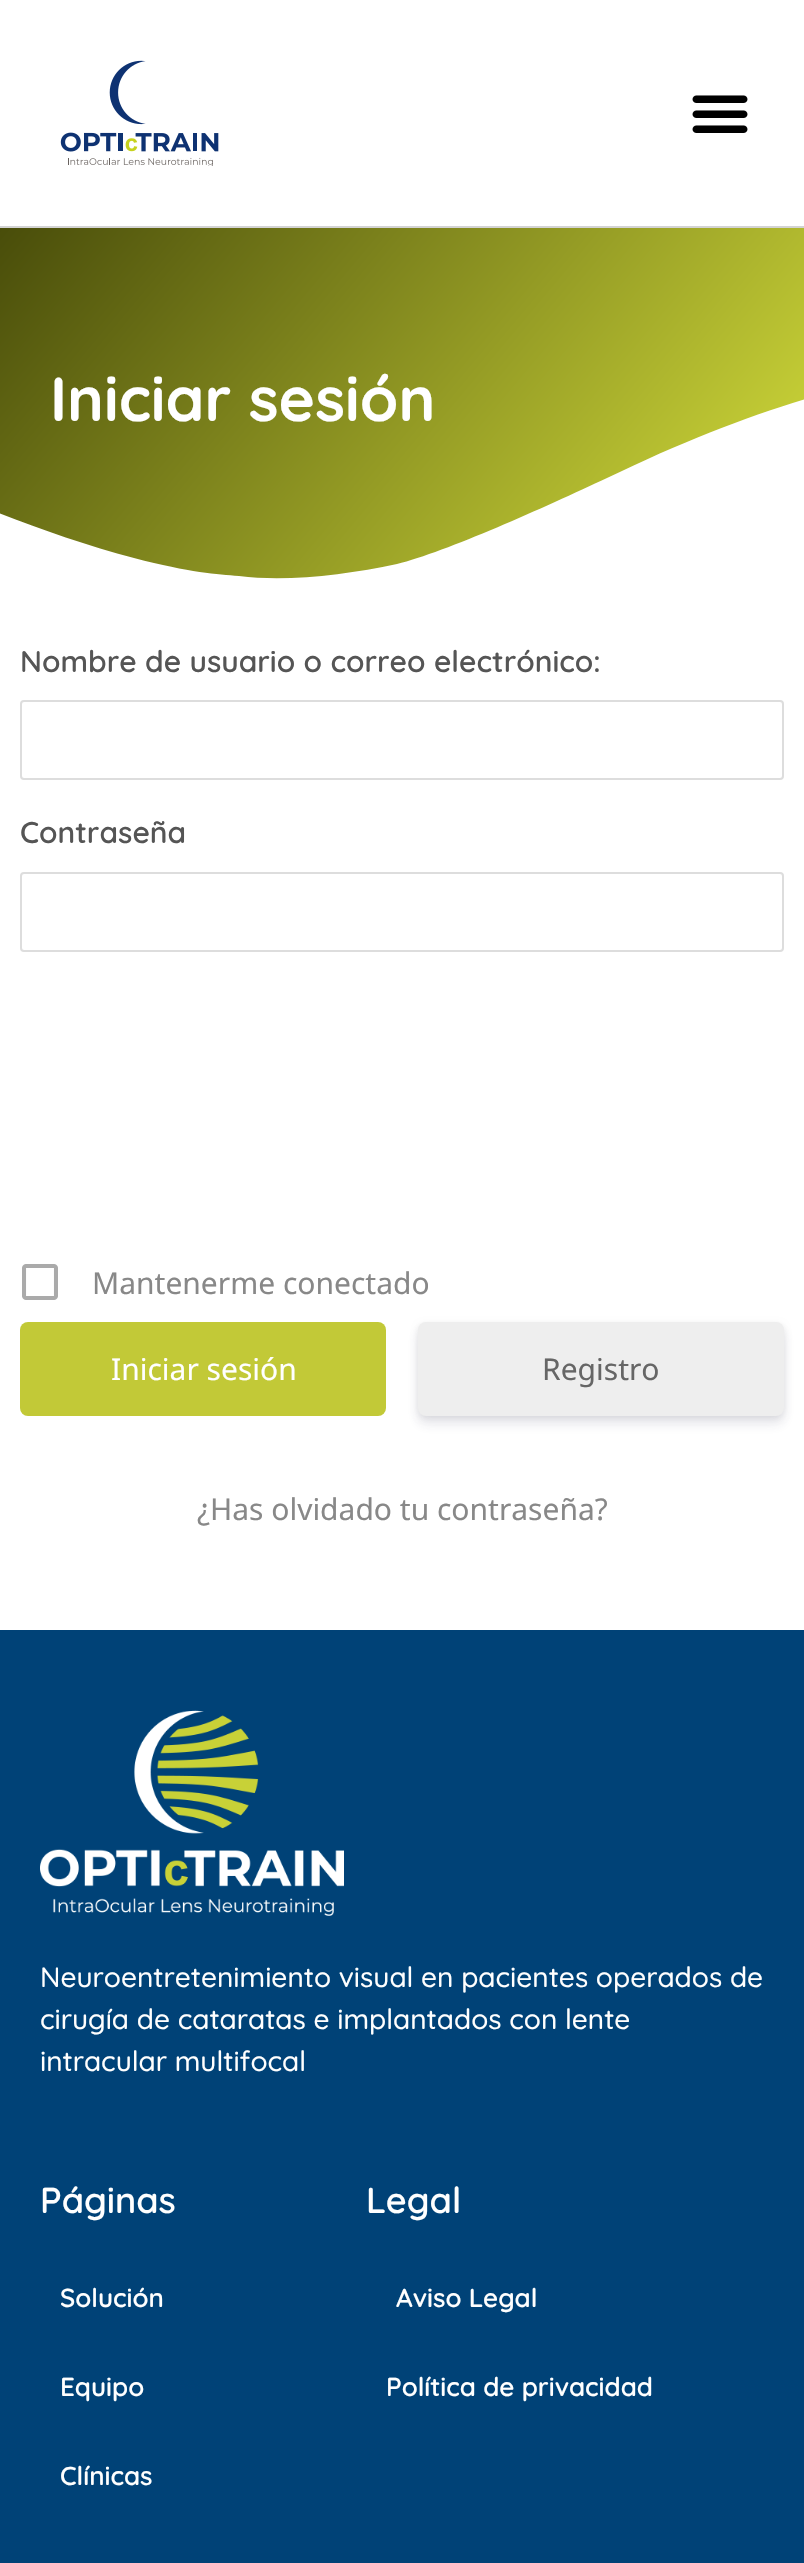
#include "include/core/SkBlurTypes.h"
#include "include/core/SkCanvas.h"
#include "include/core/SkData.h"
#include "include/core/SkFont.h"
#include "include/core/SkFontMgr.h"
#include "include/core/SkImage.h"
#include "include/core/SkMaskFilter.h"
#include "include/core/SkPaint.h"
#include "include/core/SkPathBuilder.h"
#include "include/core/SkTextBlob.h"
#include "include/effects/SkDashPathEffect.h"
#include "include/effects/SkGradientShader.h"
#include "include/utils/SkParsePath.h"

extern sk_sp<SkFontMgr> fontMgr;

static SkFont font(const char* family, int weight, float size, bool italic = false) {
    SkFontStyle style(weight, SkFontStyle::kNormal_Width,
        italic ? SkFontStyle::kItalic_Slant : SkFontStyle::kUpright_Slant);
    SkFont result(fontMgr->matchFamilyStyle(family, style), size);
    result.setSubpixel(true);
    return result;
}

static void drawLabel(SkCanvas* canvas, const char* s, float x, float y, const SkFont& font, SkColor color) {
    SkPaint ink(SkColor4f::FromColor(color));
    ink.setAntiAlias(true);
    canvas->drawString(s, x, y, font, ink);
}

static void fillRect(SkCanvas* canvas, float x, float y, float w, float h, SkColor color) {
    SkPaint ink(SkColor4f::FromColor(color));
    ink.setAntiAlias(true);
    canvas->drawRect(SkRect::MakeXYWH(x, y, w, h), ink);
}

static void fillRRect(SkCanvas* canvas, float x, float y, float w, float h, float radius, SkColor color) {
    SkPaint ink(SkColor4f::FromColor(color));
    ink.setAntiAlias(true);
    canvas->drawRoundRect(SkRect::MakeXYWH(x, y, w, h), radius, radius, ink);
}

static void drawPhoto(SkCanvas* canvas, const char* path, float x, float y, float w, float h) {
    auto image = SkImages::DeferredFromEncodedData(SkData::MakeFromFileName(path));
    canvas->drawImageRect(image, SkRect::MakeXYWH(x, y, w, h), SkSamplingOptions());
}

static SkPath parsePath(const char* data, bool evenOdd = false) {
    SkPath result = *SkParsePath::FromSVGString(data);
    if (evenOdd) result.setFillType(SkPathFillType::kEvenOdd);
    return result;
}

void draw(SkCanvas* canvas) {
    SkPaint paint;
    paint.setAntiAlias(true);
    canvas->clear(0xFFFFFFFF);
    fillRect(canvas, 0, 226, 804, 2, 0xFFD3D3D3);
    drawPhoto(canvas, "assets/img1.png", 60, 60, 159, 106);
    drawPhoto(canvas, "assets/img2.png", 692, 95, 56, 38);
    {
        const SkColor colors[] = {0xFF494D0A, 0xFFC8D137};
        const float stops[] = {0, 0.89f};
        const SkPoint ends[] = {{77, 136}, {727, 682}};
        paint.setShader(SkGradientShader::MakeLinear(ends, colors, stops, 2, SkTileMode::kClamp));
        paint.setAlpha(255);
    }
    canvas->drawRect(SkRect::MakeXYWH(0, 228, 804, 351), paint);
    paint.setShader(nullptr);
    paint.setColor(0xFFFFFFFF);
    canvas->drawPath(parsePath("M239 576C286 582 346 575 397 564C446 552 545 507 607 478C766 401 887 371 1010 359C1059 354 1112 350 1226 365C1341 379 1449 426 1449 426V592H-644V519C-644 519-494 441-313 446C-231 448-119 462-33 500C12 519 77 543 134 558C191 573 217 574 239 576Z"), paint);
    SkFont font1 = font("Quicksand", 700, 62);
    drawLabel(canvas, "Iniciar sesión", 50, 421, font1, 0xFFFFFFFF);
    SkFont font2 = font("Quicksand", 600, 30);
    drawLabel(canvas, "Nombre de usuario o correo electrónico:", 20, 672, font2, 0xFF555555);
    paint.setStroke(true);
    paint.setStrokeWidth(2);
    paint.setColor(0xFFDDDDDD);
    canvas->drawRoundRect(SkRect::MakeXYWH(21, 701, 762, 78), 3, 3, paint);
    drawLabel(canvas, "Contraseña", 20, 843, font2, 0xFF555555);
    canvas->drawRoundRect(SkRect::MakeXYWH(21, 873, 762, 78), 3, 3, paint);
    drawPhoto(canvas, "assets/img3.png", 22, 1264, 36, 36);
    SkFont font3 = font("Noto Sans", 400, 30);
    drawLabel(canvas, "Mantenerme conectado", 92, 1294, font3, 0xFF888888);
    fillRRect(canvas, 20, 1322, 366, 94, 8, 0xFFC2C937);
    drawLabel(canvas, "Iniciar sesión", 111, 1380, font3, 0xFFFFFFFF);
    paint.setStroke(false);
    paint.setColor(0x14000000);
    paint.setMaskFilter(SkMaskFilter::MakeBlur(kNormal_SkBlurStyle, 3));
    canvas->drawRoundRect(SkRect::MakeXYWH(418, 1324, 366, 94), 8, 8, paint);
    paint.setMaskFilter(nullptr);
    paint.setColor(0x1C32325D);
    paint.setMaskFilter(SkMaskFilter::MakeBlur(kNormal_SkBlurStyle, 6));
    canvas->drawRoundRect(SkRect::MakeXYWH(418, 1330, 366, 94), 8, 8, paint);
    paint.setMaskFilter(nullptr);
    fillRRect(canvas, 418, 1322, 366, 94, 8, 0xFFEEEEEE);
    drawLabel(canvas, "Registro", 542, 1380, font3, 0xFF666666);
    drawLabel(canvas, "¿Has olvidado tu contraseña?", 197, 1520, font3, 0xFF888888);
    fillRect(canvas, 0, 1630, 804, 933, 0xFF004277);
    drawPhoto(canvas, "assets/img4.png", 40, 1710, 304, 206);
    SkFont font4 = font("Quicksand", 500, 28);
    drawLabel(canvas, "Neuroentretenimiento visual en pacientes operados de", 40, 1987, font4, 0xFFFFFFFF);
    drawLabel(canvas, "cirugía de cataratas e implantados con lente", 40, 2029, font4, 0xFFFFFFFF);
    drawLabel(canvas, "intracular multifocal", 40, 2071, font4, 0xFFFFFFFF);
    SkFont font5 = font("Quicksand", 600, 36);
    drawLabel(canvas, "Páginas", 40, 2213, font5, 0xFFFFFFFF);
    SkFont font6 = font("Quicksand", 600, 26);
    drawLabel(canvas, "Solución", 60, 2307, font6, 0xFFFFFFFF);
    drawLabel(canvas, "Equipo", 60, 2396, font6, 0xFFFFFFFF);
    drawLabel(canvas, "Clínicas", 60, 2485, font6, 0xFFFFFFFF);
    drawLabel(canvas, "Legal", 366, 2213, font5, 0xFFFFFFFF);
    drawLabel(canvas, "Aviso Legal", 396, 2307, font6, 0xFFFFFFFF);
    drawLabel(canvas, "Política de privacidad", 386, 2396, font6, 0xFFFFFFFF);
}
